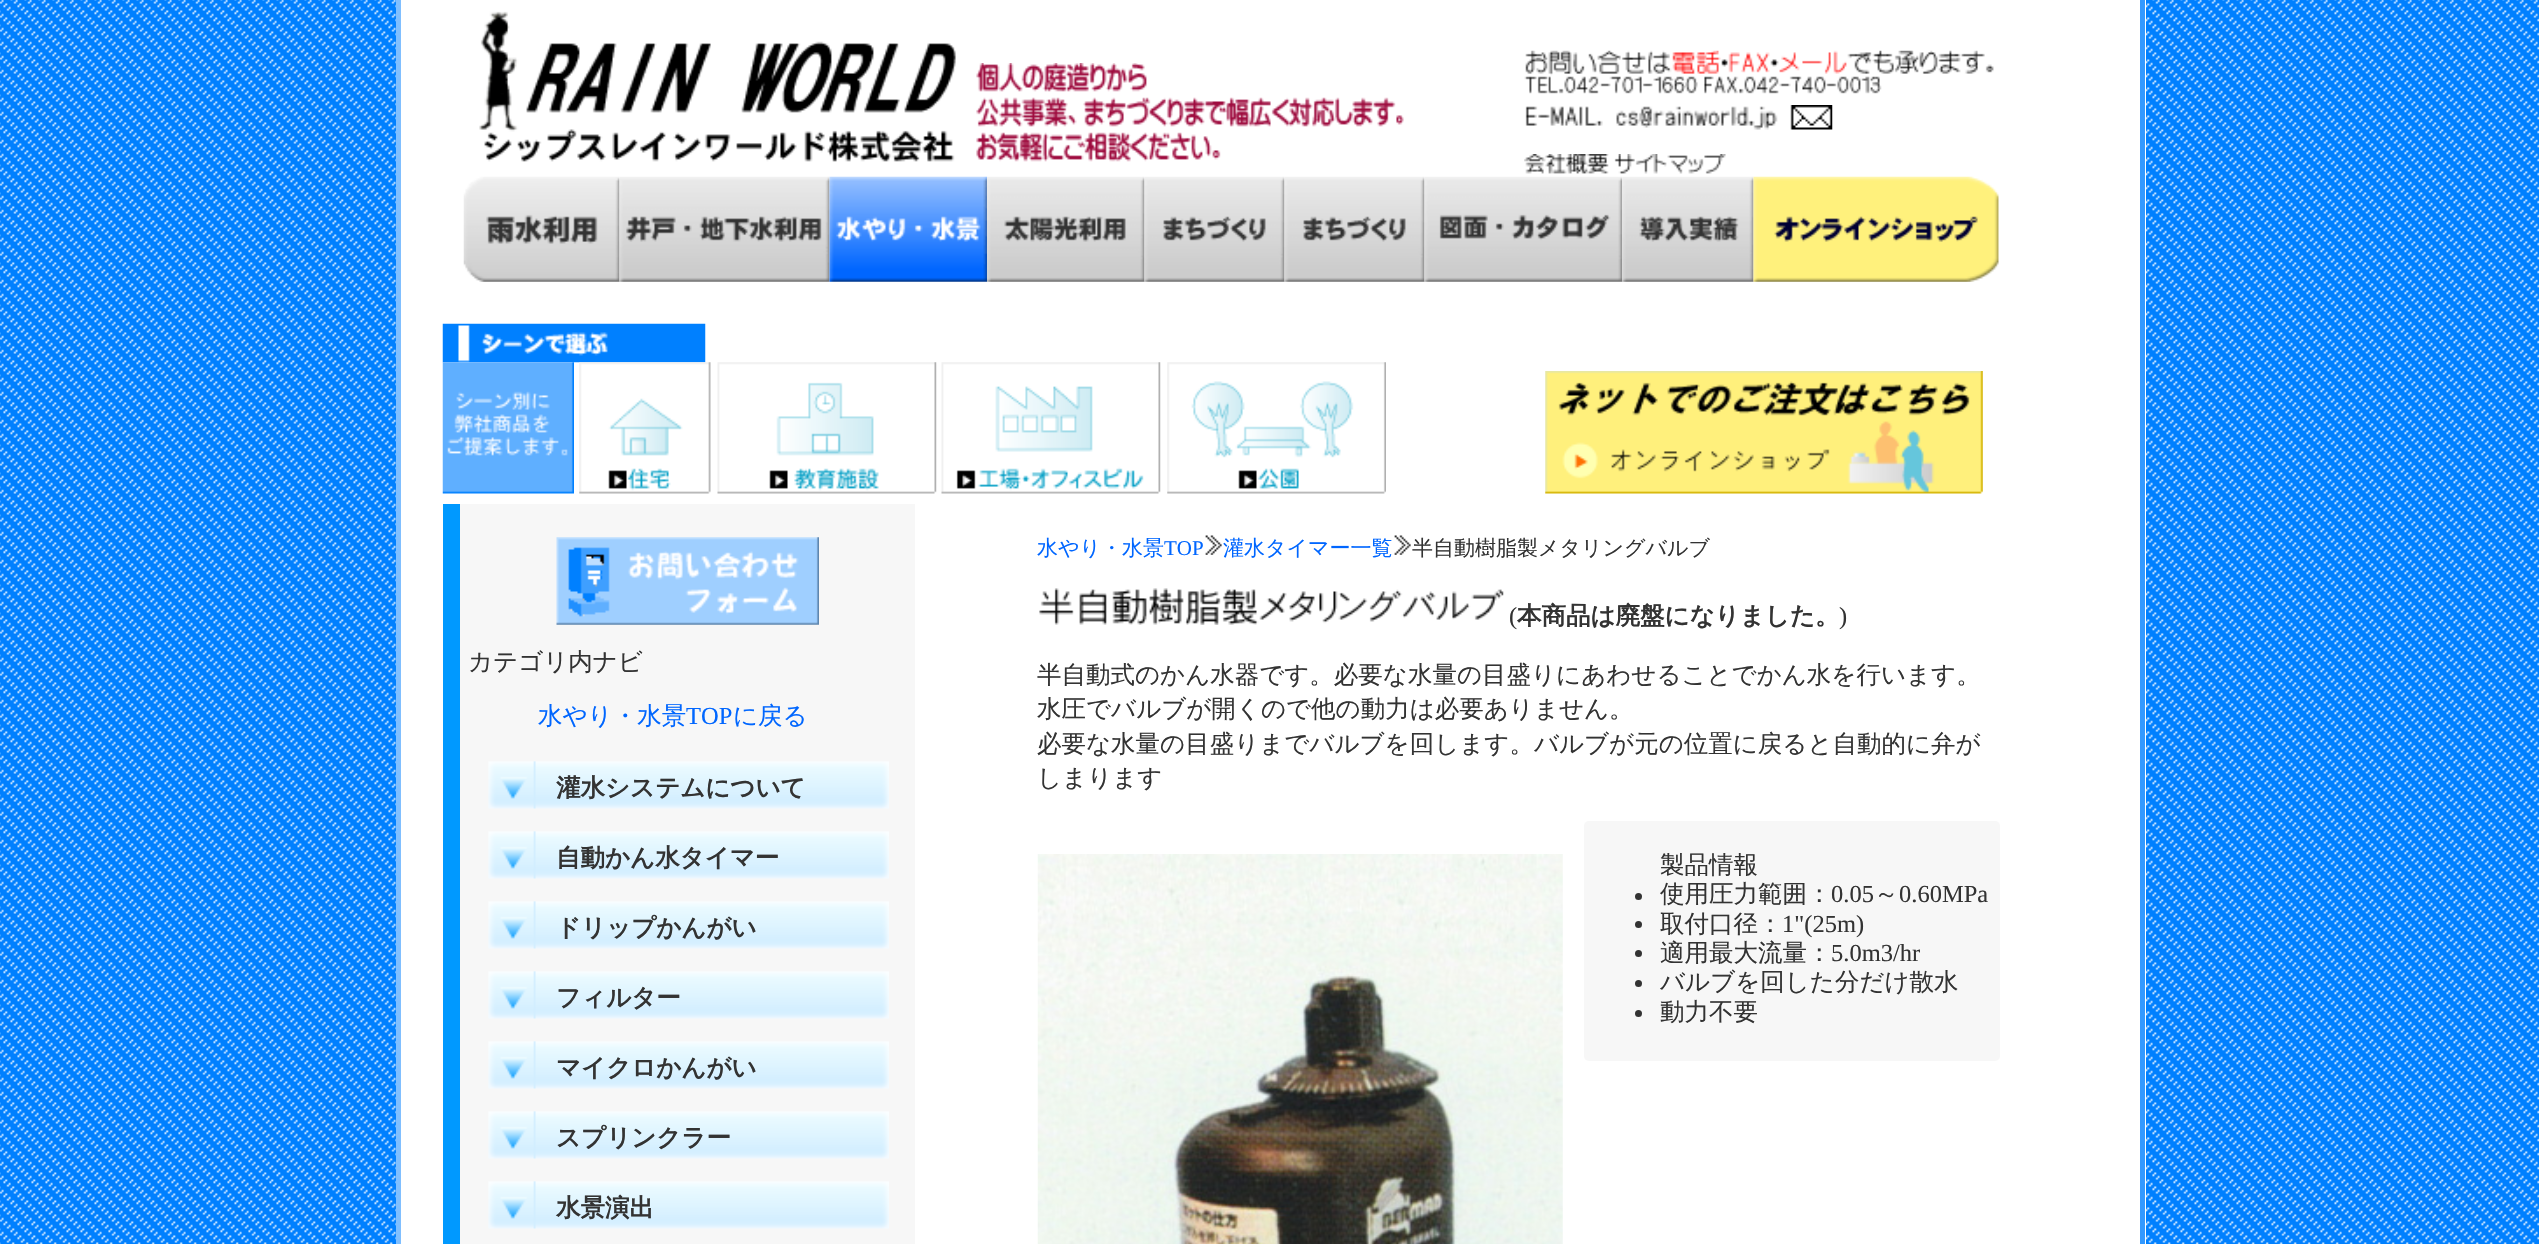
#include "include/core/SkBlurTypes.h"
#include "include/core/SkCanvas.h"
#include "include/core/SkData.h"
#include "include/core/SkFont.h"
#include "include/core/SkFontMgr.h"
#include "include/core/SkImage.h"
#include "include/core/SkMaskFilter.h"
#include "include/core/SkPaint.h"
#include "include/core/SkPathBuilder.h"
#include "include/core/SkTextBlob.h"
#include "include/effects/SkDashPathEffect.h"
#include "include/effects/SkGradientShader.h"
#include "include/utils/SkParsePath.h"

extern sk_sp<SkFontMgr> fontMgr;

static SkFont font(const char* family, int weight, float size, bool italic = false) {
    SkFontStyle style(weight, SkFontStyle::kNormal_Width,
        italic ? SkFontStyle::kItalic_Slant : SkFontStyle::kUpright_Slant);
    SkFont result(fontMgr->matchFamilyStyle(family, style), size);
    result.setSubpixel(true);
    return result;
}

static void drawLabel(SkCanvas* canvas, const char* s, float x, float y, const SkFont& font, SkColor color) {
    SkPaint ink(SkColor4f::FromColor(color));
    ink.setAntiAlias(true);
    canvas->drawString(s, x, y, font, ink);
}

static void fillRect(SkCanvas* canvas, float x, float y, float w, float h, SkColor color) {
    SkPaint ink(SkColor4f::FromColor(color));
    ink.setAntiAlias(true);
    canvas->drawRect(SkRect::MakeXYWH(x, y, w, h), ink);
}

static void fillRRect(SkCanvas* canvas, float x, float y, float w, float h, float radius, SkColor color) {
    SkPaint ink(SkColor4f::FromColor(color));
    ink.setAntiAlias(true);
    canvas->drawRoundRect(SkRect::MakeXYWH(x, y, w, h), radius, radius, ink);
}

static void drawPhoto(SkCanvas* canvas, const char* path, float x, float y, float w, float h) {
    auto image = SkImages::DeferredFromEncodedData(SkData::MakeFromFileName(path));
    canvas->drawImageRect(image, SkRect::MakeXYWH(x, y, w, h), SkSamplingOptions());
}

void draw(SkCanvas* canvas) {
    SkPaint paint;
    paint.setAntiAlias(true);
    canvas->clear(0xFFFFFFFF);
    drawPhoto(canvas, "assets/img1.png", 0, 0, 2539, 1244);
    fillRect(canvas, 401, 0, 1745, 1244, 0xFFFFFFFF);
    fillRect(canvas, 2140, 0, 5, 1244, 0xFF3399FF);
    fillRect(canvas, 396, 0, 5, 1244, 0xFF80BFFF);
    drawPhoto(canvas, "assets/img2.png", 479, 11, 477, 151);
    drawPhoto(canvas, "assets/img3.png", 976, 63, 428, 99);
    drawPhoto(canvas, "assets/img4.png", 1525, 50, 469, 26);
    drawPhoto(canvas, "assets/img5.png", 1524, 76, 174, 18);
    drawPhoto(canvas, "assets/img6.png", 1704, 76, 178, 18);
    drawPhoto(canvas, "assets/img7.png", 1525, 105, 308, 25);
    drawPhoto(canvas, "assets/img8.png", 1524, 154, 85, 20);
    drawPhoto(canvas, "assets/img9.png", 1614, 154, 112, 20);
    drawPhoto(canvas, "assets/img10.png", 463, 176, 157, 106);
    drawPhoto(canvas, "assets/img11.png", 619, 176, 211, 106);
    drawPhoto(canvas, "assets/img12.png", 829, 176, 158, 106);
    drawPhoto(canvas, "assets/img13.png", 987, 176, 158, 106);
    drawPhoto(canvas, "assets/img14.png", 1144, 176, 141, 106);
    drawPhoto(canvas, "assets/img15.png", 1284, 176, 141, 106);
    drawPhoto(canvas, "assets/img16.png", 1424, 176, 199, 106);
    drawPhoto(canvas, "assets/img17.png", 1622, 176, 132, 106);
    drawPhoto(canvas, "assets/img18.png", 1753, 176, 246, 106);
    drawPhoto(canvas, "assets/img19.png", 442, 323, 264, 40);
    drawPhoto(canvas, "assets/img20.png", 442, 362, 132, 132);
    drawPhoto(canvas, "assets/img21.png", 579, 362, 132, 132);
    drawPhoto(canvas, "assets/img22.png", 717, 362, 220, 132);
    drawPhoto(canvas, "assets/img23.png", 941, 362, 220, 132);
    drawPhoto(canvas, "assets/img24.png", 1167, 362, 219, 132);
    drawPhoto(canvas, "assets/img25.png", 1545, 371, 438, 123);
    fillRect(canvas, 460, 504, 455, 740, 0xFFF7F7F7);
    fillRect(canvas, 443, 504, 17, 740, 0xFF0099FF);
    drawPhoto(canvas, "assets/img26.png", 556, 537, 263, 88);
    SkFont font1 = font("WenQuanYi Zen Hei", 500, 24.5f);
    drawLabel(canvas, "カテゴリ内ナビ", 468, 670, font1, 0xFF333333);
    drawLabel(canvas, "水やり・水景", 538, 724, font1, 0xFF0066FF);
    SkFont font2 = font("Liberation Serif", 400, 24.5f);
    drawLabel(canvas, "TOP", 686, 724, font2, 0xFF0066FF);
    drawLabel(canvas, "に戻る", 733, 724, font1, 0xFF0066FF);
    drawPhoto(canvas, "assets/img27.png", 488, 761, 401, 48);
    SkFont font3 = font("WenQuanYi Zen Hei", 700, 24.5f);
    drawLabel(canvas, "灌水システムについて", 556, 796, font3, 0xFF333333);
    drawPhoto(canvas, "assets/img27.png", 488, 831, 401, 48);
    drawLabel(canvas, "自動かん水タイマー", 556, 866, font3, 0xFF333333);
    drawPhoto(canvas, "assets/img27.png", 488, 901, 401, 48);
    drawLabel(canvas, "ドリップかんがい", 556, 936, font3, 0xFF333333);
    drawPhoto(canvas, "assets/img27.png", 488, 971, 401, 48);
    drawLabel(canvas, "フィルター", 556, 1006, font3, 0xFF333333);
    drawPhoto(canvas, "assets/img27.png", 488, 1041, 401, 48);
    drawLabel(canvas, "マイクロかんがい", 556, 1076, font3, 0xFF333333);
    drawPhoto(canvas, "assets/img27.png", 488, 1111, 401, 48);
    drawLabel(canvas, "スプリンクラー", 556, 1146, font3, 0xFF333333);
    drawPhoto(canvas, "assets/img27.png", 488, 1181, 401, 48);
    drawLabel(canvas, "水景演出", 556, 1216, font3, 0xFF333333);
    SkFont font4 = font("WenQuanYi Zen Hei", 500, 21);
    drawLabel(canvas, "水やり・水景", 1037, 555, font4, 0xFF0066FF);
    SkFont font5 = font("Liberation Serif", 400, 21);
    drawLabel(canvas, "TOP", 1164, 555, font5, 0xFF0066FF);
    drawPhoto(canvas, "assets/img28.png", 1205, 535, 17, 20);
    drawLabel(canvas, "灌水タイマー一覧", 1223, 555, font4, 0xFF0066FF);
    drawPhoto(canvas, "assets/img28.png", 1394, 535, 17, 20);
    drawLabel(canvas, "半自動樹脂製メタリングバルブ", 1412, 555, font4, 0xFF333333);
    drawPhoto(canvas, "assets/img29.png", 1039, 588, 465, 37);
    drawLabel(canvas, "(", 1509, 624, font2, 0xFF333333);
    drawLabel(canvas, "本商品は廃盤になりました。", 1517, 624, font3, 0xFF333333);
    drawLabel(canvas, ")", 1839, 624, font2, 0xFF333333);
    drawLabel(canvas, "半自動式のかん水器です。必要な水量の目盛りにあわせることでかん水を行います。", 1037, 683, font1, 0xFF333333);
    drawLabel(canvas, "水圧でバルブが開くので他の動力は必要ありません。", 1037, 717, font1, 0xFF333333);
    drawLabel(canvas, "必要な水量の目盛りまでバルブを回します。バルブが元の位置に戻ると自動的に弁が", 1037, 752, font1, 0xFF333333);
    drawLabel(canvas, "しまります", 1037, 786, font1, 0xFF333333);
    drawPhoto(canvas, "assets/img30.png", 1037, 854, 526, 390);
    fillRRect(canvas, 1584, 821, 416, 240, 5, 0xFFF7F7F7);
    drawLabel(canvas, "製品情報", 1660, 873, font1, 0xFF333333);
    paint.setColor(0xFF333333);
    canvas->drawCircle(1638.5f, 896.5f, 3.5f, paint);
    drawLabel(canvas, "使用圧力範囲：", 1660, 902, font1, 0xFF333333);
    drawLabel(canvas, "0.05", 1831, 902, font2, 0xFF333333);
    drawLabel(canvas, "～", 1874, 902, font1, 0xFF333333);
    drawLabel(canvas, "0.60MPa", 1899, 902, font2, 0xFF333333);
    canvas->drawCircle(1638.5f, 924.5f, 3.5f, paint);
    drawLabel(canvas, "取付口径：", 1660, 932, font1, 0xFF333333);
    drawLabel(canvas, "1\"(25m)", 1782, 932, font2, 0xFF333333);
    canvas->drawCircle(1638.5f, 953.5f, 3.5f, paint);
    drawLabel(canvas, "適用最大流量：", 1660, 961, font1, 0xFF333333);
    drawLabel(canvas, "5.0m3/hr", 1831, 961, font2, 0xFF333333);
    canvas->drawCircle(1638.5f, 983.5f, 3.5f, paint);
    drawLabel(canvas, "バルブを回した分だけ散水", 1660, 990, font1, 0xFF333333);
    canvas->drawCircle(1638.5f, 1013.5f, 3.5f, paint);
    drawLabel(canvas, "動力不要", 1660, 1020, font1, 0xFF333333);
}
